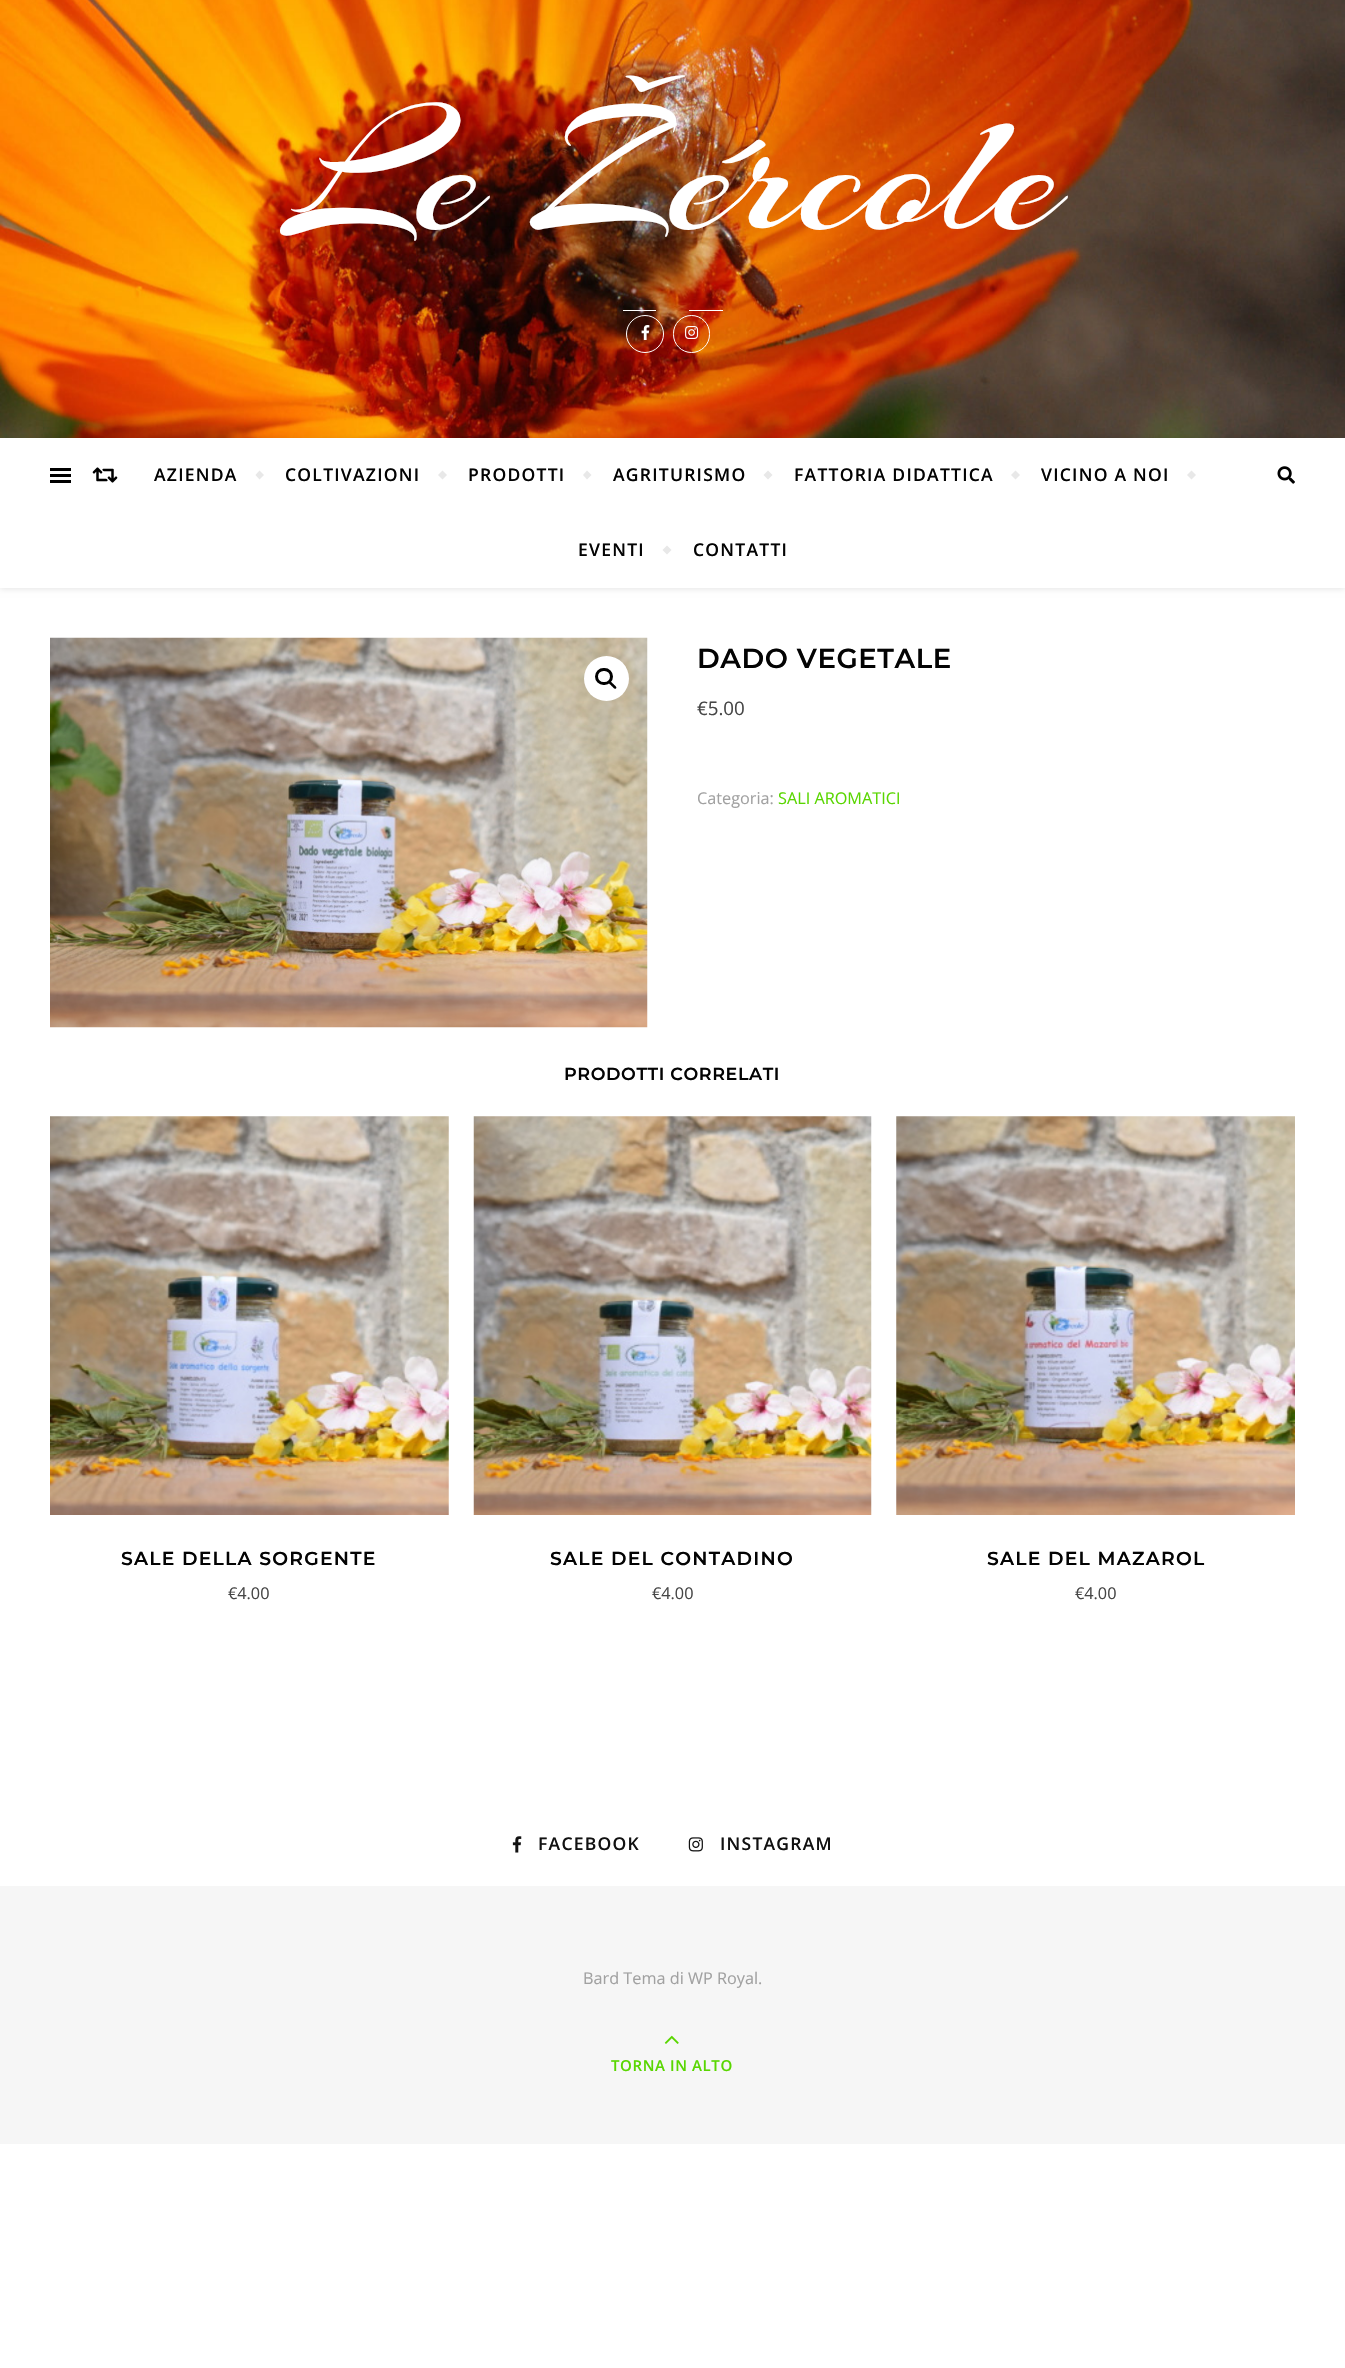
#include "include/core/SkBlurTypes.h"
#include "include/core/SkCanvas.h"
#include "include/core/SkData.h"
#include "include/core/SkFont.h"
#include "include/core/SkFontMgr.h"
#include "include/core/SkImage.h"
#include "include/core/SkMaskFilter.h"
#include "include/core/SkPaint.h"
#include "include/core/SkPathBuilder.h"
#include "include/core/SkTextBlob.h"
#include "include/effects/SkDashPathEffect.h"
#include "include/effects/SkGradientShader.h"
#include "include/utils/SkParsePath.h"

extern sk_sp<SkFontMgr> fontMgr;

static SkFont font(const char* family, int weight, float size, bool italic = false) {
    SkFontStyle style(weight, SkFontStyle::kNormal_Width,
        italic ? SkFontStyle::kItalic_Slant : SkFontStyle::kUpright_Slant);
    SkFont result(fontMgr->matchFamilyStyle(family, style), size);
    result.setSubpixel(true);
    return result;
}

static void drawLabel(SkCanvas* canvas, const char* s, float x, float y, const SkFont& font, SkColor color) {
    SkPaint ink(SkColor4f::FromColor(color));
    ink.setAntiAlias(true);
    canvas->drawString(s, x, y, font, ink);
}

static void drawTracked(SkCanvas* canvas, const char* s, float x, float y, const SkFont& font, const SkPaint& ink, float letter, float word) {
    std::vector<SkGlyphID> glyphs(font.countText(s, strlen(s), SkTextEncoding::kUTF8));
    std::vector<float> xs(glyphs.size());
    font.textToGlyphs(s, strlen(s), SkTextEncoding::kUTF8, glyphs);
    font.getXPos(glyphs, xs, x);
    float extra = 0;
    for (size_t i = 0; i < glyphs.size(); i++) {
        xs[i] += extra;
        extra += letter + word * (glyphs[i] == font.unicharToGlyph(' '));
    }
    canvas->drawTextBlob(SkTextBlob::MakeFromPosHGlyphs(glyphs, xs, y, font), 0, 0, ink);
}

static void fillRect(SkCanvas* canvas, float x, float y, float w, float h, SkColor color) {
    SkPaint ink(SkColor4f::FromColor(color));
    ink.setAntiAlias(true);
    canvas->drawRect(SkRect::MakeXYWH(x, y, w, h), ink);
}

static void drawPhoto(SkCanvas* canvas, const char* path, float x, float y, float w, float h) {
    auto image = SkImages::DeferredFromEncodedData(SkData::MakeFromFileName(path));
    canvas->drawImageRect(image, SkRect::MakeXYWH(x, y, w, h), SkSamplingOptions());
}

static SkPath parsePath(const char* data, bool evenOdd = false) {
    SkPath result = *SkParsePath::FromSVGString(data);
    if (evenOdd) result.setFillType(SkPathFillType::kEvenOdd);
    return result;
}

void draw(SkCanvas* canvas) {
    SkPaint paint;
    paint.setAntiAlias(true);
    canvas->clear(0xFFFFFFFF);
    drawPhoto(canvas, "assets/img1.png", 0, 0, 1345, 438);
    SkFont font1 = font("Arizonia", 400, 187.5f);
    drawLabel(canvas, "Le Žércole", 285, 228, font1, 0xFFFFFFFF);
    fillRect(canvas, 623, 310, 33, 1, 0xFFFFFFFF);
    fillRect(canvas, 689, 310, 34, 1, 0xFFFFFFFF);
    paint.setStroke(true);
    paint.setStrokeWidth(1);
    paint.setColor(0xFFFFFFFF);
    canvas->drawCircle(645, 334, 18.5f, paint);
    drawPhoto(canvas, "assets/img2.png", 641, 325, 9, 15);
    canvas->drawRoundRect(SkRect::MakeXYWH(673.5f, 315.5f, 36, 37), 18, 18, paint);
    drawPhoto(canvas, "assets/img3.png", 685, 326, 14, 13);
    paint.setStroke(false);
    paint.setColor(0x1A000000);
    paint.setMaskFilter(SkMaskFilter::MakeBlur(kNormal_SkBlurStyle, 3));
    canvas->drawRect(SkRect::MakeXYWH(0, 439, 1345, 150), paint);
    paint.setMaskFilter(nullptr);
    fillRect(canvas, 0, 438, 1345, 150, 0xFFFFFFFF);
    fillRect(canvas, 50, 468, 21, 3, 0xFF000000);
    fillRect(canvas, 50, 474, 21, 3, 0xFF000000);
    fillRect(canvas, 50, 480, 21, 3, 0xFF000000);
    drawPhoto(canvas, "assets/img4.png", 92, 467, 26, 16);
    SkFont font2 = font("Open Sans", 600, 17.5f);
    paint.setColor(0xFF030303);
    drawTracked(canvas, "AZIENDA", 154, 481, font2, paint, 1.25f, 0);
    paint.setColor(0xFFE8E8E8);
    canvas->drawPath(parsePath("M255.5 475L259.5 470.5L264 475L259.5 479.5Z"), paint);
    paint.setColor(0xFF030303);
    drawTracked(canvas, "COLTIVAZIONI", 285, 481, font2, paint, 1.25f, 0);
    paint.setColor(0xFFE8E8E8);
    canvas->drawPath(parsePath("M438 475L442.5 470.5L447 475L442.5 479.5Z"), paint);
    paint.setColor(0xFF030303);
    drawTracked(canvas, "PRODOTTI", 468, 481, font2, paint, 1.25f, 0);
    paint.setColor(0xFFE8E8E8);
    canvas->drawPath(parsePath("M583 475L587 470.5L591.5 475L587 479.5Z"), paint);
    paint.setColor(0xFF030303);
    drawTracked(canvas, "AGRITURISMO", 613, 481, font2, paint, 1.25f, 0);
    paint.setColor(0xFFE8E8E8);
    canvas->drawPath(parsePath("M763.5 475L768 470.5L772.5 475L768 479.5Z"), paint);
    paint.setColor(0xFF030303);
    drawTracked(canvas, "FATTORIA DIDATTICA", 794, 481, font2, paint, 1.25f, 0);
    paint.setColor(0xFFE8E8E8);
    canvas->drawPath(parsePath("M1011 475L1015.5 470.5L1020 475L1015.5 479.5Z"), paint);
    paint.setColor(0xFF030303);
    drawTracked(canvas, "VICINO A NOI", 1041, 481, font2, paint, 1.25f, 0);
    paint.setColor(0xFFE8E8E8);
    canvas->drawPath(parsePath("M1187 475L1191.5 470.5L1196 475L1191.5 479.5Z"), paint);
    paint.setColor(0xFF030303);
    drawTracked(canvas, "EVENTI", 578, 556, font2, paint, 1.25f, 0);
    paint.setColor(0xFFE8E8E8);
    canvas->drawPath(parsePath("M662.5 550L667 545.5L671.5 550L667 554.5Z"), paint);
    paint.setColor(0xFF030303);
    drawTracked(canvas, "CONTATTI", 693, 556, font2, paint, 1.25f, 0);
    drawPhoto(canvas, "assets/img5.png", 1277, 466, 18, 18);
    drawPhoto(canvas, "assets/img6.png", 50, 637, 598, 391);
    paint.setColor(0xFFFFFFFF);
    canvas->drawCircle(606.5f, 678.5f, 22.5f, paint);
    paint.setStroke(true);
    paint.setStrokeWidth(3);
    paint.setColor(0xFF000000);
    canvas->drawRoundRect(SkRect::MakeXYWH(596.5f, 669.5f, 15, 14), 7, 7, paint);
    paint.setStroke(false);
    canvas->drawPath(parsePath("M609 681.5C610.5 680 612.5 683.5 613.5 684C614 685 617.5 687 616 688.5C614.5 690 612.5 686.5 611.5 686C611 685 607.5 683 609 681.5Z"), paint);
    SkFont font3 = font("Montserrat", 600, 27.5f);
    paint.setColor(0xFF030303);
    drawTracked(canvas, "DADO VEGETALE", 697, 668, font3, paint, 0.6f, 0);
    SkFont font4 = font("Open Sans", 400, 18.75f);
    drawLabel(canvas, "€5.00", 697, 715, font4, 0xFF464646);
    SkFont font5 = font("Open Sans", 400, 16.25f);
    drawLabel(canvas, "Categoria:", 697, 804, font5, 0xFFA1A1A1);
    drawLabel(canvas, "SALI AROMATICI", 778, 804, font5, 0xFF59D600);
    SkFont font6 = font("Montserrat", 600, 17.5f);
    drawTracked(canvas, "PRODOTTI CORRELATI", 564, 1080, font6, paint, 0.6f, 0);
    drawPhoto(canvas, "assets/img7.png", 50, 1116, 399, 399);
    SkFont font7 = font("Montserrat", 600, 18.75f);
    drawTracked(canvas, "SALE DELLA SORGENTE", 121, 1565, font7, paint, 1.25f, 0);
    drawLabel(canvas, "€4.00", 228, 1599, font5, 0xFF464646);
    drawPhoto(canvas, "assets/img8.png", 473, 1116, 399, 399);
    drawTracked(canvas, "SALE DEL CONTADINO", 550, 1565, font7, paint, 1.25f, 0);
    drawLabel(canvas, "€4.00", 652, 1599, font5, 0xFF464646);
    drawPhoto(canvas, "assets/img9.png", 896, 1116, 399, 399);
    drawTracked(canvas, "SALE DEL MAZAROL", 987, 1565, font7, paint, 1.25f, 0);
    drawLabel(canvas, "€4.00", 1075, 1599, font5, 0xFF464646);
    drawPhoto(canvas, "assets/img10.png", 512, 1836, 10, 17);
    paint.setColor(0xFF111111);
    drawTracked(canvas, "FACEBOOK", 538, 1850, font2, paint, 1.25f, 0);
    drawPhoto(canvas, "assets/img11.png", 688, 1837, 15, 15);
    drawTracked(canvas, "INSTAGRAM", 720, 1850, font2, paint, 1.25f, 0);
    fillRect(canvas, 0, 1886, 1345, 258, 0xFFF6F6F6);
    drawLabel(canvas, "Bard Tema di WP Royal.", 583, 1984, font5, 0xFFA1A1A1);
    drawPhoto(canvas, "assets/img12.png", 664, 2035, 15, 9);
    SkFont font8 = font("Open Sans", 600, 15);
    paint.setColor(0xFF59D600);
    drawTracked(canvas, "TORNA IN ALTO", 611, 2071, font8, paint, 0.6f, 0);
}
